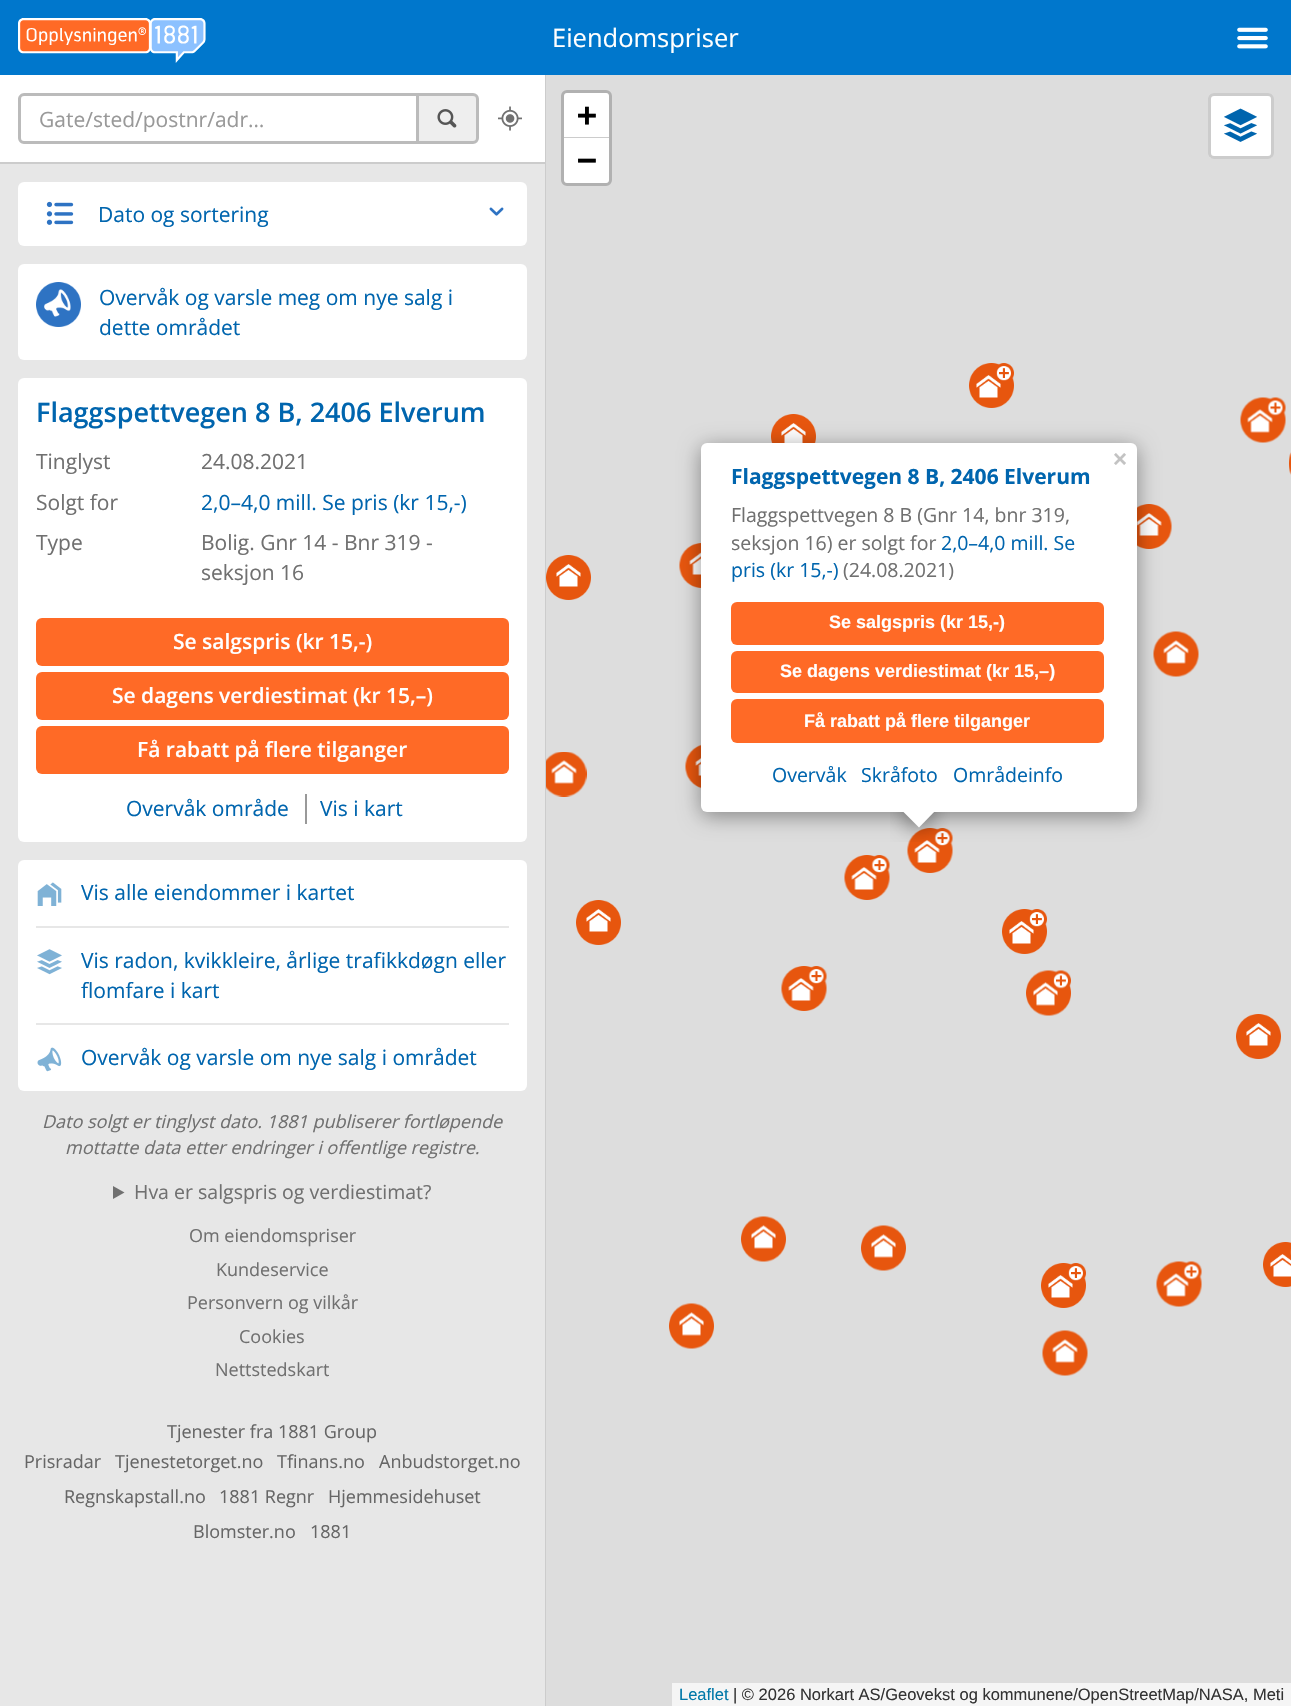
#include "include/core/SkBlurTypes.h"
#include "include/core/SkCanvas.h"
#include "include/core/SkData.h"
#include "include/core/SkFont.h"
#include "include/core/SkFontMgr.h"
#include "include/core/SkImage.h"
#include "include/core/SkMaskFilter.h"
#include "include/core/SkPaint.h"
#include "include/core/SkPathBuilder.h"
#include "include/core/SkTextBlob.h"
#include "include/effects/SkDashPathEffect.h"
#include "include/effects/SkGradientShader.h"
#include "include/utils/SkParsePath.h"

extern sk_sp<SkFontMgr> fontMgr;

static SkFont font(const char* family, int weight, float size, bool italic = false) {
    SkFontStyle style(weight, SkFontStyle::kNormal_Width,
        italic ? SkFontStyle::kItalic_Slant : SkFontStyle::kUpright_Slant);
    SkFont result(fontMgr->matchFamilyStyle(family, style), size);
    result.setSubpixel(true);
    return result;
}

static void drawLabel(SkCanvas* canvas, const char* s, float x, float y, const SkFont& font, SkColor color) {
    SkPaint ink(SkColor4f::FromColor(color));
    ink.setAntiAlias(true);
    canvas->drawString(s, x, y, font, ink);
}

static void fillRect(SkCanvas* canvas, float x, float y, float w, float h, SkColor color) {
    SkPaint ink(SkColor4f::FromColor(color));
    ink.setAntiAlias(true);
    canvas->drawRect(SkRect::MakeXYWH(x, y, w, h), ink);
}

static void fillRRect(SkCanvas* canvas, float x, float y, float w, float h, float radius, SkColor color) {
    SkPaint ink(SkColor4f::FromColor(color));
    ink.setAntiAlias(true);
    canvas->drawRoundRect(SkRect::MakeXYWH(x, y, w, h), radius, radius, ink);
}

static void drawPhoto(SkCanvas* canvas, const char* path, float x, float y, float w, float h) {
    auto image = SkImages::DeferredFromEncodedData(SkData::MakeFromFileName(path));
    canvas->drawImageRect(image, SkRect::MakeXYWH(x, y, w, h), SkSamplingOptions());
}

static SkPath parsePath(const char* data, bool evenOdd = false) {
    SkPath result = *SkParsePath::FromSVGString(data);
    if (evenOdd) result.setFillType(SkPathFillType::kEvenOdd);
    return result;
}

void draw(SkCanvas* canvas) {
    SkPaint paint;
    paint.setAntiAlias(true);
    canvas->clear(0xFFFFFFFF);
    fillRect(canvas, 0, 0, 1291, 75, 0xFF0077CC);
    drawPhoto(canvas, "assets/img1.png", 18, 18, 188, 45);
    SkFont font1 = font("Open Sans", 400, 25.5f);
    drawLabel(canvas, "Eiendomspriser", 552, 47, font1, 0xFFFFFFFF);
    drawPhoto(canvas, "assets/img2.png", 1237, 27, 31, 22);
    fillRect(canvas, 545, 75, 1, 1631, 0xFFCCCCCC);
    paint.setColor(0xFFBBBBBB);
    canvas->drawPath(parsePath("M24 93H416V144H24C21 144 18 141 18 138V99C18 96 21 93 24 93ZM24 96H416V141H24C22 141 21 140 21 138V99C21 97 22 96 24 96Z", true), paint);
    SkFont font2 = font("Open Sans", 400, 21);
    drawLabel(canvas, "Gate/sted/postnr/adr…", 39, 127, font2, 0xFF999999);
    paint.setColor(0xFFEEEEEE);
    canvas->drawPath(parsePath("M417.5 94.5H473C475.5 94.5 477.5 96.5 477.5 99V138C477.5 140.5 475.5 142.5 473 142.5H417.5Z"), paint);
    paint.setStroke(true);
    paint.setStrokeWidth(3);
    paint.setColor(0xFFBBBBBB);
    canvas->drawPath(parsePath("M417.5 94.5H473C475.5 94.5 477.5 96.5 477.5 99V138C477.5 140.5 475.5 142.5 473 142.5H417.5Z"), paint);
    drawPhoto(canvas, "assets/img3.png", 437, 109, 20, 19);
    drawPhoto(canvas, "assets/img4.png", 498, 106, 24, 25);
    fillRect(canvas, 0, 164, 545, 1542, 0xFFE7E7E7);
    fillRect(canvas, 0, 162, 545, 2, 0xFFCCCCCC);
    fillRRect(canvas, 18, 182, 509, 64, 6, 0xFFFFFFFF);
    drawPhoto(canvas, "assets/img5.png", 46, 201, 28, 24);
    drawLabel(canvas, "Dato og sortering", 98, 222, font2, 0xFF0065AE);
    drawPhoto(canvas, "assets/img6.png", 489, 207, 15, 9);
    fillRRect(canvas, 18, 264, 509, 96, 6, 0xFFFFFFFF);
    drawPhoto(canvas, "assets/img7.png", 36, 282, 45, 45);
    drawLabel(canvas, "Overvåk og varsle meg om nye salg i", 99, 305, font2, 0xFF0065AE);
    drawLabel(canvas, "dette området", 99, 335, font2, 0xFF0065AE);
    fillRRect(canvas, 18, 378, 509, 464, 6, 0xFFFFFFFF);
    SkFont font3 = font("Open Sans", 600, 27);
    drawLabel(canvas, "Flaggspettvegen 8 B, 2406 Elverum", 36, 422, font3, 0xFF0065AE);
    drawLabel(canvas, "Tinglyst", 36, 469, font2, 0xFF707070);
    drawLabel(canvas, "24.08.2021", 201, 469, font2, 0xFF707070);
    drawLabel(canvas, "Solgt for", 36, 510, font2, 0xFF707070);
    drawLabel(canvas, "2,0–4,0 mill. Se pris (kr 15,-)", 201, 510, font2, 0xFF0065AE);
    drawLabel(canvas, "Type", 36, 550, font2, 0xFF707070);
    drawLabel(canvas, "Bolig. Gnr 14 - Bnr 319 -", 201, 550, font2, 0xFF707070);
    drawLabel(canvas, "seksjon 16", 201, 580, font2, 0xFF707070);
    fillRRect(canvas, 36, 618, 473, 48, 6, 0xFFFF6A26);
    SkFont font4 = font("Open Sans", 600, 21);
    drawLabel(canvas, "Se salgspris (kr 15,-)", 173, 649, font4, 0xFFFFFFFF);
    fillRRect(canvas, 36, 672, 473, 48, 6, 0xFFFF6A26);
    drawLabel(canvas, "Se dagens verdiestimat (kr 15,–)", 112, 703, font4, 0xFFFFFFFF);
    fillRRect(canvas, 36, 726, 473, 48, 6, 0xFFFF6A26);
    drawLabel(canvas, "Få rabatt på flere tilganger", 137, 757, font4, 0xFFFFFFFF);
    fillRect(canvas, 305, 794, 2, 30, 0xFF999999);
    drawLabel(canvas, "Overvåk område", 126, 816, font2, 0xFF0065AE);
    drawLabel(canvas, "Vis i kart", 320, 816, font2, 0xFF0065AE);
    fillRRect(canvas, 18, 860, 509, 231, 6, 0xFFFFFFFF);
    fillRect(canvas, 36, 926, 473, 2, 0xFFE7E7E7);
    drawPhoto(canvas, "assets/img8.png", 37, 882, 25, 24);
    drawLabel(canvas, "Vis alle eiendommer i kartet", 81, 900, font2, 0xFF0065AE);
    fillRect(canvas, 36, 1023, 473, 2, 0xFFE7E7E7);
    drawPhoto(canvas, "assets/img9.png", 37, 949, 25, 26);
    drawLabel(canvas, "Vis radon, kvikkleire, årlige trafikkdøgn eller", 81, 968, font2, 0xFF0065AE);
    drawLabel(canvas, "flomfare i kart", 81, 998, font2, 0xFF0065AE);
    drawPhoto(canvas, "assets/img10.png", 37, 1047, 25, 25);
    drawLabel(canvas, "Overvåk og varsle om nye salg i området", 81, 1065, font2, 0xFF0065AE);
    SkFont font5 = font("Open Sans", 400, 18, true);
    drawLabel(canvas, "Dato solgt er tinglyst dato. 1881 publiserer fortløpende", 42, 1128, font5, 0xFF707070);
    drawLabel(canvas, "mottatte data etter endringer i offentlige registre.", 65, 1154, font5, 0xFF707070);
    paint.setStroke(false);
    paint.setColor(0xFF707070);
    canvas->drawPath(parsePath("M113 1186L124.5 1192.5L113 1199Z"), paint);
    SkFont font6 = font("Open Sans", 400, 19.5f);
    drawLabel(canvas, "Hva er salgspris og verdiestimat?", 134, 1199, font6, 0xFF707070);
    SkFont font7 = font("Open Sans", 400, 18);
    drawLabel(canvas, "Om eiendomspriser", 189, 1242, font7, 0xFF707070);
    drawLabel(canvas, "Kundeservice", 216, 1276, font7, 0xFF707070);
    drawLabel(canvas, "Personvern og vilkår", 187, 1309, font7, 0xFF707070);
    drawLabel(canvas, "Cookies", 239, 1343, font7, 0xFF707070);
    drawLabel(canvas, "Nettstedskart", 215, 1376, font7, 0xFF707070);
    drawLabel(canvas, "Tjenester fra 1881 Group", 167, 1438, font7, 0xFF666666);
    drawLabel(canvas, "Prisradar", 24, 1468, font7, 0xFF666666);
    drawLabel(canvas, "Tjenestetorget.no", 115, 1468, font7, 0xFF666666);
    drawLabel(canvas, "Tfinans.no", 277, 1468, font7, 0xFF666666);
    drawLabel(canvas, "Anbudstorget.no", 379, 1468, font7, 0xFF666666);
    drawLabel(canvas, "Regnskapstall.no", 64, 1503, font7, 0xFF666666);
    drawLabel(canvas, "1881 Regnr", 219, 1503, font7, 0xFF666666);
    drawLabel(canvas, "Hjemmesidehuset", 328, 1503, font7, 0xFF666666);
    drawLabel(canvas, "Blomster.no", 193, 1538, font7, 0xFF666666);
    drawLabel(canvas, "1881", 310, 1538, font7, 0xFF666666);
    fillRect(canvas, 546, 75, 745, 1631, 0xFFDDDDDD);
    fillRRect(canvas, 1208, 93, 66, 66, 6, 0xFFFFFFFF);
    paint.setStroke(true);
    paint.setColor(0x33000000);
    canvas->drawRoundRect(SkRect::MakeXYWH(1209.5f, 94.5f, 63, 63), 4.5f, 4.5f, paint);
    drawPhoto(canvas, "assets/img11.png", 1224, 108, 33, 34);
    paint.setColor(0xFFB1B1B1);
    canvas->drawRoundRect(SkRect::MakeXYWH(562.5f, 91.5f, 48, 93), 4.5f, 4.5f, paint);
    paint.setStroke(false);
    paint.setColor(0xFFFFFFFF);
    canvas->drawPath(parsePath("M567 93H606C607.5 93 609 94.5 609 96V138H564V96C564 94.5 565.5 93 567 93Z"), paint);
    fillRect(canvas, 564, 137, 45, 1, 0xFFCCCCCC);
    SkFont font8 = font("DejaVu Sans Mono", 700, 33);
    drawLabel(canvas, "+", 577, 126, font8, 0xFF000000);
    canvas->drawPath(parsePath("M564 138H609V180C609 181.5 607.5 183 606 183H567C565.5 183 564 181.5 564 180Z"), paint);
    drawLabel(canvas, "−", 577, 171, font8, 0xFF000000);
    fillRect(canvas, 672, 1683, 619, 23, 0xFFF5F5F5);
    SkFont font9 = font("Liberation Sans", 400, 16.5f);
    drawLabel(canvas, "Leaflet", 679, 1700, font9, 0xFF0078A8);
    drawLabel(canvas, "| © 2026 Norkart AS/Geovekst og kommunene/OpenStreetMap/NASA, Meti", 733, 1700, font9, 0xFF333333);
    drawPhoto(canvas, "assets/img12.png", 969, 363, 45, 45);
    drawPhoto(canvas, "assets/img13.png", 771, 414, 45, 29);
    drawPhoto(canvas, "assets/img14.png", 1240, 397, 46, 46);
    drawPhoto(canvas, "assets/img15.png", 1289, 452, 2, 23);
    drawPhoto(canvas, "assets/img16.png", 1137, 504, 35, 45);
    drawPhoto(canvas, "assets/img17.png", 546, 555, 45, 45);
    drawPhoto(canvas, "assets/img18.png", 679, 543, 22, 45);
    drawPhoto(canvas, "assets/img19.png", 1153, 631, 46, 46);
    drawPhoto(canvas, "assets/img20.png", 546, 752, 41, 45);
    drawPhoto(canvas, "assets/img21.png", 685, 744, 16, 45);
    drawPhoto(canvas, "assets/img22.png", 907, 828, 46, 45);
    drawPhoto(canvas, "assets/img22.png", 844, 855, 46, 45);
    drawPhoto(canvas, "assets/img17.png", 576, 900, 45, 45);
    drawPhoto(canvas, "assets/img12.png", 1002, 909, 45, 45);
    drawPhoto(canvas, "assets/img22.png", 781, 966, 46, 45);
    drawPhoto(canvas, "assets/img23.png", 1026, 970, 45, 46);
    drawPhoto(canvas, "assets/img17.png", 1236, 1014, 45, 45);
    drawPhoto(canvas, "assets/img24.png", 741, 1216, 45, 46);
    drawPhoto(canvas, "assets/img24.png", 861, 1225, 45, 46);
    drawPhoto(canvas, "assets/img12.png", 1041, 1263, 45, 45);
    drawPhoto(canvas, "assets/img14.png", 1156, 1261, 46, 46);
    drawPhoto(canvas, "assets/img25.png", 1263, 1242, 28, 45);
    drawPhoto(canvas, "assets/img24.png", 669, 1303, 45, 46);
    drawPhoto(canvas, "assets/img19.png", 1042, 1330, 46, 46);
    paint.setColor(0x66000000);
    paint.setMaskFilter(SkMaskFilter::MakeBlur(kNormal_SkBlurStyle, 10.5f));
    canvas->drawRoundRect(SkRect::MakeXYWH(701, 447, 436, 369), 6, 6, paint);
    paint.setMaskFilter(nullptr);
    fillRRect(canvas, 701, 443, 436, 369, 6, 0xFFFFFFFF);
    SkFont font10 = font("Liberation Sans", 700, 24);
    drawLabel(canvas, "×", 1113, 467, font10, 0xFFC3C3C3);
    SkFont font11 = font("Open Sans", 700, 21);
    drawLabel(canvas, "Flaggspettvegen 8 B, 2406 Elverum", 731, 484, font11, 0xFF0065AE);
    drawLabel(canvas, "Flaggspettvegen 8 B (Gnr 14, bnr 319,", 731, 522, font6, 0xFF707070);
    drawLabel(canvas, "seksjon 16) er solgt for", 731, 550, font6, 0xFF707070);
    drawLabel(canvas, "2,0–4,0 mill. Se", 941, 550, font6, 0xFF0065AE);
    drawLabel(canvas, "pris (kr 15,-)", 731, 577, font6, 0xFF0065AE);
    drawLabel(canvas, "(24.08.2021)", 843, 577, font6, 0xFF707070);
    fillRRect(canvas, 731, 602, 373, 43, 6, 0xFFFF6A26);
    SkFont font12 = font("Liberation Sans", 700, 18);
    drawLabel(canvas, "Se salgspris (kr 15,-)", 829, 628, font12, 0xFFFFFFFF);
    fillRRect(canvas, 731, 651, 373, 42, 6, 0xFFFF6A26);
    drawLabel(canvas, "Se dagens verdiestimat (kr 15,–)", 780, 677, font12, 0xFFFFFFFF);
    fillRRect(canvas, 731, 699, 373, 44, 6, 0xFFFF6A26);
    drawLabel(canvas, "Få rabatt på flere tilganger", 804, 727, font12, 0xFFFFFFFF);
    drawLabel(canvas, "Overvåk", 772, 782, font6, 0xFF0065AE);
    drawLabel(canvas, "Skråfoto", 861, 782, font6, 0xFF0065AE);
    drawLabel(canvas, "Områdeinfo", 953, 782, font6, 0xFF0065AE);
    canvas->save();
    canvas->clipRect(SkRect::MakeXYWH(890, 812, 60, 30));
    paint.setMaskFilter(SkMaskFilter::MakeBlur(kNormal_SkBlurStyle, 10.5f));
    canvas->drawRect(SkRect::MakeXYWH(906, 801, 26, 26), paint);
    paint.setMaskFilter(nullptr);
    canvas->restore();
    canvas->save();
    canvas->clipRect(SkRect::MakeXYWH(890, 812, 60, 30));
    paint.setColor(0xFFFFFFFF);
    canvas->drawPath(parsePath("M919 791L937 809L919 827.5L900.5 809Z"), paint);
    canvas->restore();
}
